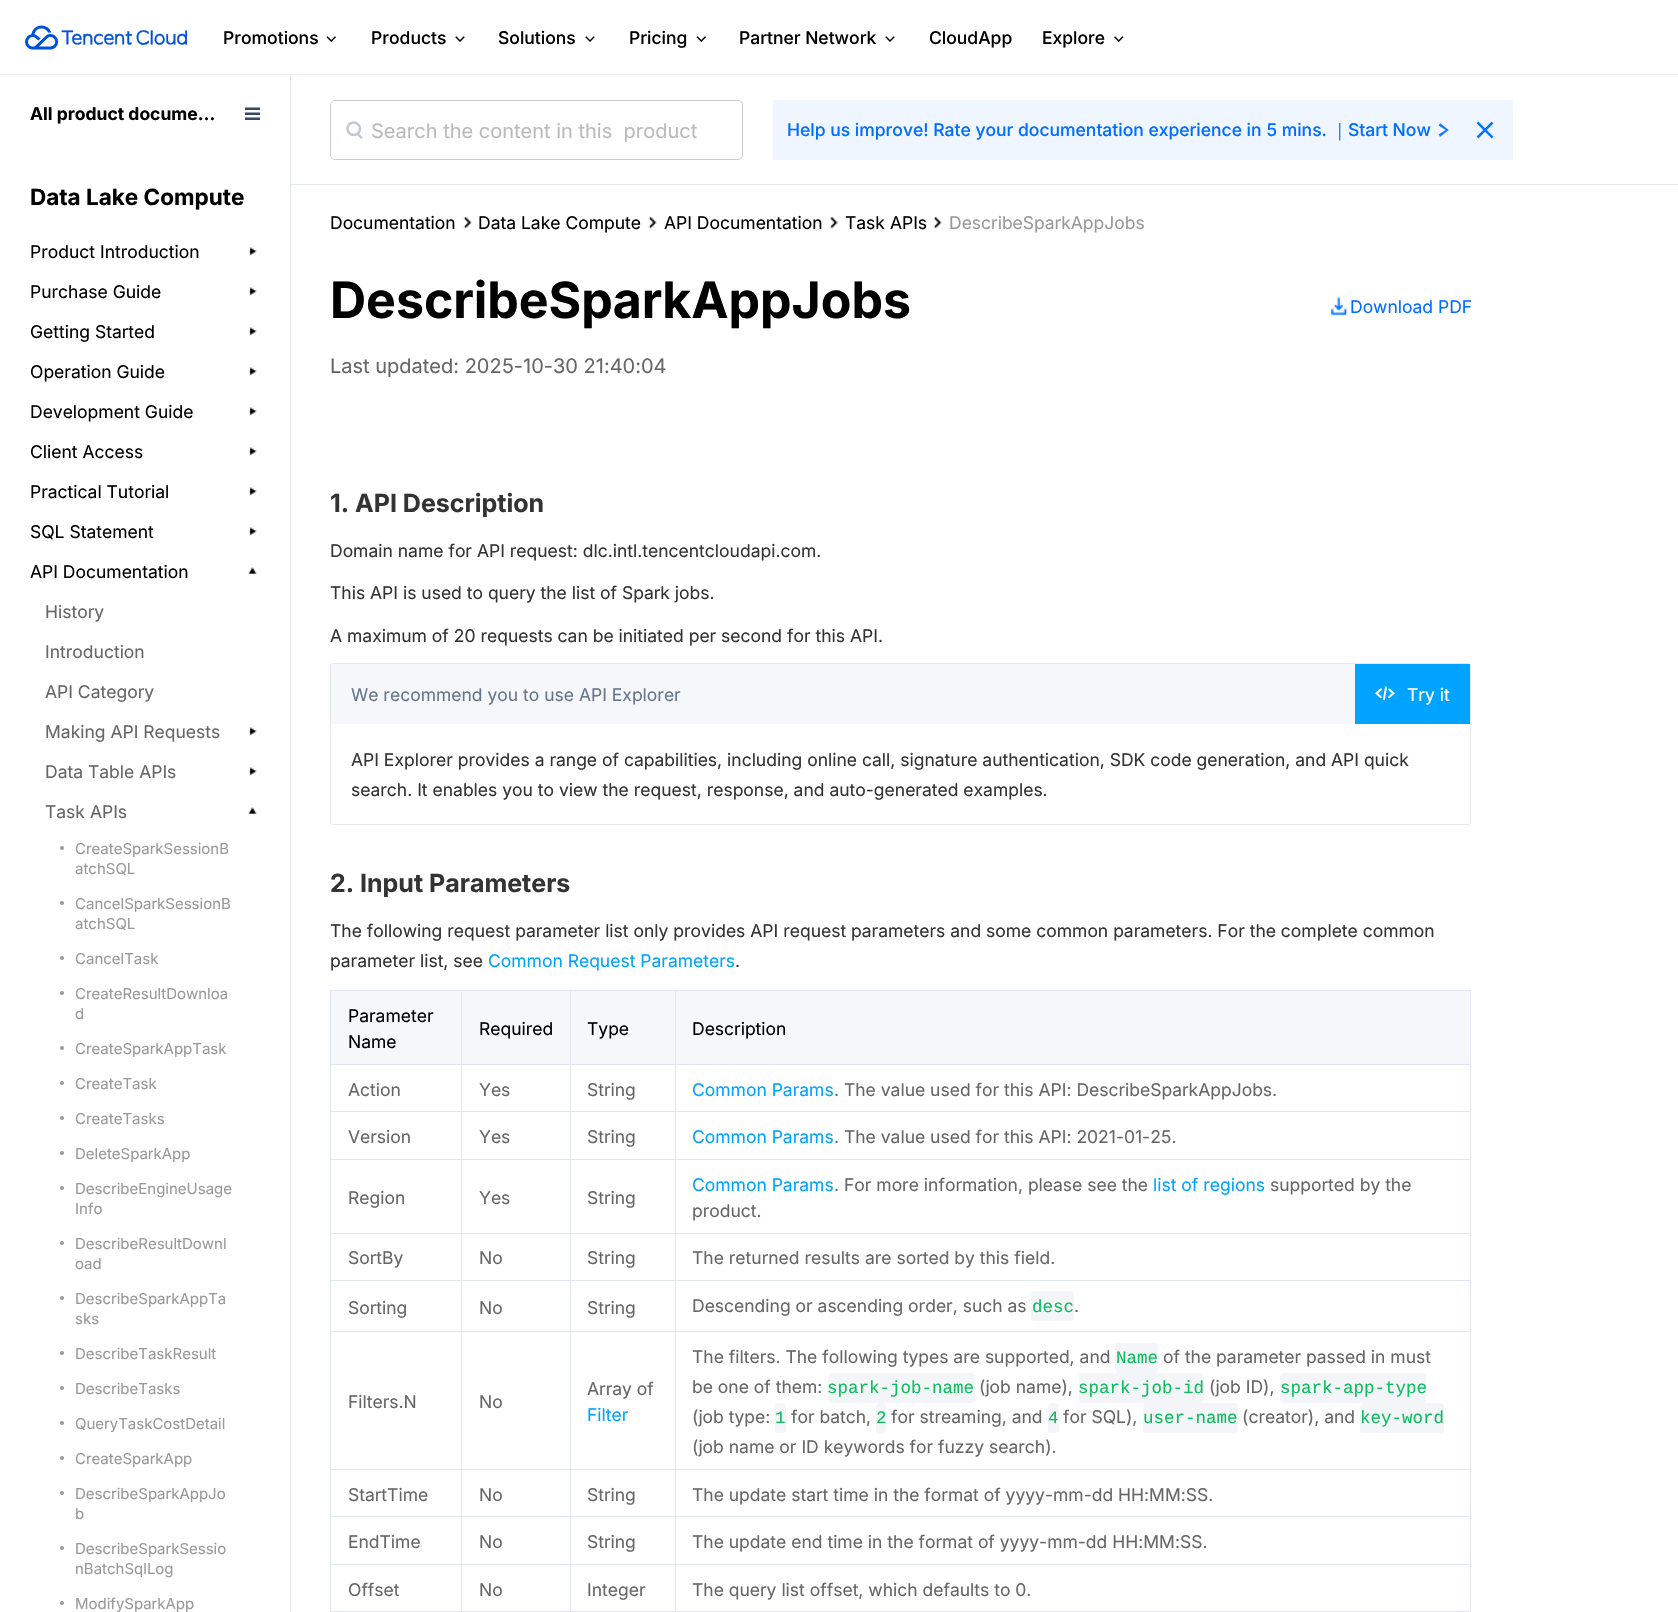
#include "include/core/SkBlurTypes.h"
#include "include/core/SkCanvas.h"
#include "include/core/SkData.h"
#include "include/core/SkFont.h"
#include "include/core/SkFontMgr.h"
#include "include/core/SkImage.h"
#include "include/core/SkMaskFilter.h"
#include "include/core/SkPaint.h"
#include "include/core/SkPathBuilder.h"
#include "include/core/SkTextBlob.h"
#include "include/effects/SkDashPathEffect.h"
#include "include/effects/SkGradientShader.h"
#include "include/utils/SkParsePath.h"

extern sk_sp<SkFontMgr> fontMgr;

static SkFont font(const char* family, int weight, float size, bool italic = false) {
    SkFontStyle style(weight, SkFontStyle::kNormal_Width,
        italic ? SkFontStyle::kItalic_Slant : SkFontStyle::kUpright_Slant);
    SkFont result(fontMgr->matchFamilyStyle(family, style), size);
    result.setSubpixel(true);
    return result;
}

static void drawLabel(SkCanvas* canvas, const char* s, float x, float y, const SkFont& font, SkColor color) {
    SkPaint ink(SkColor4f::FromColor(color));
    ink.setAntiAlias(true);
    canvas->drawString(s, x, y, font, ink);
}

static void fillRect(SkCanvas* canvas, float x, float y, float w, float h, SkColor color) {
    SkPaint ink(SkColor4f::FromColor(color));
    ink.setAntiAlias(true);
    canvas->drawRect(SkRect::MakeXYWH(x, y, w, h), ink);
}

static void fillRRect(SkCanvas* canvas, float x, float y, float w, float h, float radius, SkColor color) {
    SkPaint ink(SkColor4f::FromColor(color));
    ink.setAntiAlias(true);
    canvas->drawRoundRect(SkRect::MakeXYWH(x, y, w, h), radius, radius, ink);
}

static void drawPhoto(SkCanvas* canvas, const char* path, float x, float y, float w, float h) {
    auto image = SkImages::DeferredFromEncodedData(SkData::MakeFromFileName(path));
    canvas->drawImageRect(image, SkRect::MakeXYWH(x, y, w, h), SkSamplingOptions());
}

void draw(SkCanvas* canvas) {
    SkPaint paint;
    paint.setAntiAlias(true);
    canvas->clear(0xFFFFFFFF);
    fillRect(canvas, 0, 74, 1678, 1, 0xFFEEF0F5);
    drawPhoto(canvas, "assets/img1.png", 25, 25, 163, 25);
    SkFont font1 = font("Inter", 500, 17.5f);
    drawLabel(canvas, "Promotions", 223, 44, font1, 0xFF000000);
    drawPhoto(canvas, "assets/img2.png", 326, 36, 10, 6);
    drawLabel(canvas, "Products", 371, 44, font1, 0xFF000000);
    drawPhoto(canvas, "assets/img3.png", 455, 36, 10, 6);
    drawLabel(canvas, "Solutions", 498, 44, font1, 0xFF000000);
    drawPhoto(canvas, "assets/img3.png", 585, 36, 10, 6);
    drawLabel(canvas, "Pricing", 629, 44, font1, 0xFF000000);
    drawPhoto(canvas, "assets/img2.png", 696, 36, 10, 6);
    drawLabel(canvas, "Partner Network", 739, 44, font1, 0xFF000000);
    drawPhoto(canvas, "assets/img3.png", 885, 36, 10, 6);
    drawLabel(canvas, "CloudApp", 929, 44, font1, 0xFF000000);
    drawLabel(canvas, "Explore", 1042, 44, font1, 0xFF000000);
    drawPhoto(canvas, "assets/img4.png", 1114, 36, 10, 6);
    fillRect(canvas, 290, 184, 1388, 1, 0xFFE5E8ED);
    fillRect(canvas, 290, 75, 1, 1537, 0xFFE5E8ED);
    SkFont font2 = font("Inter", 700, 17.5f);
    drawLabel(canvas, "All product docume…", 30, 120, font2, 0xFF000000);
    drawPhoto(canvas, "assets/img5.png", 245, 107, 15, 13);
    SkFont font3 = font("Inter", 700, 22.5f);
    drawLabel(canvas, "Data Lake Compute", 30, 205, font3, 0xFF000000);
    SkFont font4 = font("Inter", 400, 17.5f);
    drawLabel(canvas, "Product Introduction", 30, 258, font4, 0xFF000000);
    drawPhoto(canvas, "assets/img6.png", 249, 247, 8, 9);
    drawLabel(canvas, "Purchase Guide", 30, 298, font4, 0xFF000000);
    drawPhoto(canvas, "assets/img6.png", 249, 287, 8, 9);
    drawLabel(canvas, "Getting Started", 30, 338, font4, 0xFF000000);
    drawPhoto(canvas, "assets/img6.png", 249, 327, 8, 9);
    drawLabel(canvas, "Operation Guide", 30, 378, font4, 0xFF000000);
    drawPhoto(canvas, "assets/img6.png", 249, 367, 8, 9);
    drawLabel(canvas, "Development Guide", 30, 418, font4, 0xFF000000);
    drawPhoto(canvas, "assets/img6.png", 249, 407, 8, 9);
    drawLabel(canvas, "Client Access", 30, 458, font4, 0xFF000000);
    drawPhoto(canvas, "assets/img6.png", 249, 447, 8, 9);
    drawLabel(canvas, "Practical Tutorial", 30, 498, font4, 0xFF000000);
    drawPhoto(canvas, "assets/img6.png", 249, 487, 8, 9);
    drawLabel(canvas, "SQL Statement", 30, 538, font4, 0xFF000000);
    drawPhoto(canvas, "assets/img6.png", 249, 527, 8, 9);
    drawLabel(canvas, "API Documentation", 30, 578, font4, 0xFF000000);
    drawPhoto(canvas, "assets/img7.png", 248, 567, 9, 7);
    drawLabel(canvas, "History", 45, 618, font4, 0xFF666666);
    drawLabel(canvas, "Introduction", 45, 658, font4, 0xFF666666);
    drawLabel(canvas, "API Category", 45, 698, font4, 0xFF666666);
    drawLabel(canvas, "Making API Requests", 45, 738, font4, 0xFF666666);
    drawPhoto(canvas, "assets/img6.png", 249, 727, 8, 9);
    drawLabel(canvas, "Data Table APIs", 45, 778, font4, 0xFF666666);
    drawPhoto(canvas, "assets/img6.png", 249, 767, 8, 9);
    drawLabel(canvas, "Task APIs", 45, 818, font4, 0xFF666666);
    drawPhoto(canvas, "assets/img7.png", 248, 807, 9, 7);
    paint.setColor(0xFF999999);
    canvas->drawCircle(62, 848, 2, paint);
    SkFont font5 = font("Inter", 400, 15);
    drawLabel(canvas, "CreateSparkSessionB", 75, 854, font5, 0xFF999999);
    drawLabel(canvas, "atchSQL", 75, 874, font5, 0xFF999999);
    canvas->drawCircle(62, 903, 2, paint);
    drawLabel(canvas, "CancelSparkSessionB", 75, 909, font5, 0xFF999999);
    drawLabel(canvas, "atchSQL", 75, 929, font5, 0xFF999999);
    canvas->drawCircle(62, 958, 2, paint);
    drawLabel(canvas, "CancelTask", 75, 964, font5, 0xFF999999);
    canvas->drawCircle(62, 993, 2, paint);
    drawLabel(canvas, "CreateResultDownloa", 75, 999, font5, 0xFF999999);
    drawLabel(canvas, "d", 75, 1019, font5, 0xFF999999);
    canvas->drawCircle(62, 1048, 2, paint);
    drawLabel(canvas, "CreateSparkAppTask", 75, 1054, font5, 0xFF999999);
    canvas->drawCircle(62, 1083, 2, paint);
    drawLabel(canvas, "CreateTask", 75, 1089, font5, 0xFF999999);
    canvas->drawCircle(62, 1118, 2, paint);
    drawLabel(canvas, "CreateTasks", 75, 1124, font5, 0xFF999999);
    canvas->drawCircle(62, 1153, 2, paint);
    drawLabel(canvas, "DeleteSparkApp", 75, 1159, font5, 0xFF999999);
    canvas->drawCircle(62, 1188, 2, paint);
    drawLabel(canvas, "DescribeEngineUsage", 75, 1194, font5, 0xFF999999);
    drawLabel(canvas, "Info", 75, 1214, font5, 0xFF999999);
    canvas->drawCircle(62, 1243, 2, paint);
    drawLabel(canvas, "DescribeResultDownl", 75, 1249, font5, 0xFF999999);
    drawLabel(canvas, "oad", 75, 1269, font5, 0xFF999999);
    canvas->drawCircle(62, 1298, 2, paint);
    drawLabel(canvas, "DescribeSparkAppTa", 75, 1304, font5, 0xFF999999);
    drawLabel(canvas, "sks", 75, 1324, font5, 0xFF999999);
    canvas->drawCircle(62, 1353, 2, paint);
    drawLabel(canvas, "DescribeTaskResult", 75, 1359, font5, 0xFF999999);
    canvas->drawCircle(62, 1388, 2, paint);
    drawLabel(canvas, "DescribeTasks", 75, 1394, font5, 0xFF999999);
    canvas->drawCircle(62, 1423, 2, paint);
    drawLabel(canvas, "QueryTaskCostDetail", 75, 1429, font5, 0xFF999999);
    canvas->drawCircle(62, 1458, 2, paint);
    drawLabel(canvas, "CreateSparkApp", 75, 1464, font5, 0xFF999999);
    canvas->drawCircle(62, 1493, 2, paint);
    drawLabel(canvas, "DescribeSparkAppJo", 75, 1499, font5, 0xFF999999);
    drawLabel(canvas, "b", 75, 1519, font5, 0xFF999999);
    canvas->drawCircle(62, 1548, 2, paint);
    drawLabel(canvas, "DescribeSparkSessio", 75, 1554, font5, 0xFF999999);
    drawLabel(canvas, "nBatchSqlLog", 75, 1574, font5, 0xFF999999);
    canvas->drawCircle(62, 1603, 2, paint);
    drawLabel(canvas, "ModifySparkApp", 75, 1609, font5, 0xFF999999);
    paint.setStroke(true);
    paint.setStrokeWidth(1);
    paint.setColor(0xFFCCCCCC);
    canvas->drawRoundRect(SkRect::MakeXYWH(330.5f, 100.5f, 412, 59), 4.5f, 4.5f, paint);
    drawPhoto(canvas, "assets/img8.png", 346, 121, 17, 18);
    SkFont font6 = font("Inter", 400, 20);
    drawLabel(canvas, "Search the content in this  product", 371, 138, font6, 0xFFBBBBBB);
    fillRect(canvas, 773, 100, 740, 60, 0xFFEFF6FF);
    drawLabel(canvas, "Help us improve! Rate your documentation experience in 5 mins.", 787, 136, font1, 0xFF006EFF);
    SkFont font7 = font("WenQuanYi Zen Hei", 500, 17.5f);
    drawLabel(canvas, "｜", 1331, 136, font7, 0xFF006EFF);
    drawLabel(canvas, "Start Now", 1348, 136, font1, 0xFF006EFF);
    drawPhoto(canvas, "assets/img9.png", 1438, 123, 11, 14);
    drawPhoto(canvas, "assets/img10.png", 1476, 121, 18, 18);
    drawLabel(canvas, "Documentation", 330, 229, font4, 0xFF000000);
    drawPhoto(canvas, "assets/img11.png", 463, 216, 9, 13);
    drawLabel(canvas, "Data Lake Compute", 478, 229, font4, 0xFF000000);
    drawPhoto(canvas, "assets/img11.png", 648, 216, 9, 13);
    drawLabel(canvas, "API Documentation", 664, 229, font4, 0xFF000000);
    drawPhoto(canvas, "assets/img12.png", 830, 216, 8, 13);
    drawLabel(canvas, "Task APIs", 845, 229, font4, 0xFF000000);
    drawPhoto(canvas, "assets/img11.png", 933, 216, 9, 13);
    drawLabel(canvas, "DescribeSparkAppJobs", 949, 229, font4, 0xFF999999);
    SkFont font8 = font("Inter", 700, 50);
    drawLabel(canvas, "DescribeSparkAppJobs", 330, 318, font8, 0xFF000000);
    drawPhoto(canvas, "assets/img13.png", 1331, 297, 16, 19);
    drawLabel(canvas, "Download PDF", 1350, 313, font4, 0xFF006EFF);
    drawLabel(canvas, "Last updated: 2025-10-30 21:40:04", 330, 373, font6, 0xFF666666);
    SkFont font9 = font("Inter", 700, 25);
    drawLabel(canvas, "1. API Description", 330, 512, font9, 0xFF333333);
    drawLabel(canvas, "Domain name for API request: dlc.intl.tencentcloudapi.com.", 330, 557, font4, 0xFF333333);
    drawLabel(canvas, "This API is used to query the list of Spark jobs.", 330, 599, font4, 0xFF333333);
    drawLabel(canvas, "A maximum of 20 requests can be initiated per second for this API.", 330, 642, font4, 0xFF333333);
    paint.setColor(0xFFE5E8ED);
    canvas->drawRoundRect(SkRect::MakeXYWH(330.5f, 663.5f, 1140, 161), 2, 2, paint);
    fillRRect(canvas, 331, 664, 1139, 60, 2.5f, 0xFFF5F7FA);
    drawLabel(canvas, "We recommend you to use API Explorer", 351, 701, font4, 0xFF677489);
    fillRect(canvas, 1355, 664, 115, 60, 0xFF00A4FF);
    drawPhoto(canvas, "assets/img14.png", 1375, 686, 20, 15);
    drawLabel(canvas, "Try it", 1407, 701, font4, 0xFFFFFFFF);
    drawLabel(canvas, "API Explorer provides a range of capabilities, including online call, signature authentication, SDK code generation, and API quick", 351, 766, font4, 0xFF333333);
    drawLabel(canvas, "search. It enables you to view the request, response, and auto-generated examples.", 351, 796, font4, 0xFF333333);
    drawLabel(canvas, "2. Input Parameters", 330, 892, font9, 0xFF333333);
    drawLabel(canvas, "The following request parameter list only provides API request parameters and some common parameters. For the complete common", 330, 937, font4, 0xFF333333);
    drawLabel(canvas, "parameter list, see", 330, 967, font4, 0xFF333333);
    drawLabel(canvas, "Common Request Parameters", 488, 967, font4, 0xFF00A4FF);
    drawLabel(canvas, ".", 735, 967, font4, 0xFF333333);
    fillRect(canvas, 331, 991, 239, 73, 0xFFF5F7FA);
    fillRect(canvas, 675, 990, 796, 1, 0xFFE1E6F0);
    fillRect(canvas, 675, 1064, 796, 1, 0xFFE1E6F0);
    fillRect(canvas, 675, 1111, 796, 1, 0xFFE1E6F0);
    fillRect(canvas, 675, 1159, 796, 1, 0xFFE1E6F0);
    fillRect(canvas, 675, 1233, 796, 1, 0xFFE1E6F0);
    fillRect(canvas, 675, 1280, 796, 1, 0xFFE1E6F0);
    fillRect(canvas, 675, 1331, 796, 1, 0xFFE1E6F0);
    fillRect(canvas, 675, 1469, 796, 1, 0xFFE1E6F0);
    fillRect(canvas, 675, 1516, 796, 1, 0xFFE1E6F0);
    fillRect(canvas, 675, 1564, 796, 1, 0xFFE1E6F0);
    fillRect(canvas, 330, 1611, 1141, 1, 0xFFE1E6F0);
    fillRect(canvas, 675, 1564, 1, 48, 0xFFE1E6F0);
    fillRect(canvas, 570, 1564, 106, 1, 0xFFE1E6F0);
    fillRect(canvas, 675, 1516, 1, 49, 0xFFE1E6F0);
    fillRect(canvas, 570, 1516, 106, 1, 0xFFE1E6F0);
    fillRect(canvas, 675, 1469, 1, 49, 0xFFE1E6F0);
    fillRect(canvas, 570, 1469, 106, 1, 0xFFE1E6F0);
    fillRect(canvas, 675, 1331, 1, 139, 0xFFE1E6F0);
    fillRect(canvas, 570, 1331, 106, 1, 0xFFE1E6F0);
    fillRect(canvas, 675, 1280, 1, 53, 0xFFE1E6F0);
    fillRect(canvas, 570, 1280, 106, 1, 0xFFE1E6F0);
    fillRect(canvas, 675, 1233, 1, 48, 0xFFE1E6F0);
    fillRect(canvas, 570, 1233, 106, 1, 0xFFE1E6F0);
    fillRect(canvas, 675, 1159, 1, 75, 0xFFE1E6F0);
    fillRect(canvas, 570, 1159, 106, 1, 0xFFE1E6F0);
    fillRect(canvas, 675, 1111, 1, 49, 0xFFE1E6F0);
    fillRect(canvas, 570, 1111, 106, 1, 0xFFE1E6F0);
    fillRect(canvas, 675, 1064, 1, 49, 0xFFE1E6F0);
    fillRect(canvas, 570, 1064, 106, 1, 0xFFE1E6F0);
    fillRect(canvas, 675, 990, 1, 75, 0xFFE1E6F0);
    fillRect(canvas, 570, 990, 106, 1, 0xFFE1E6F0);
    fillRect(canvas, 570, 1564, 1, 48, 0xFFE1E6F0);
    fillRect(canvas, 461, 1564, 110, 1, 0xFFE1E6F0);
    fillRect(canvas, 570, 1516, 1, 49, 0xFFE1E6F0);
    fillRect(canvas, 461, 1516, 110, 1, 0xFFE1E6F0);
    fillRect(canvas, 570, 1469, 1, 49, 0xFFE1E6F0);
    fillRect(canvas, 461, 1469, 110, 1, 0xFFE1E6F0);
    fillRect(canvas, 570, 1331, 1, 139, 0xFFE1E6F0);
    fillRect(canvas, 461, 1331, 110, 1, 0xFFE1E6F0);
    fillRect(canvas, 570, 1280, 1, 53, 0xFFE1E6F0);
    fillRect(canvas, 461, 1280, 110, 1, 0xFFE1E6F0);
    fillRect(canvas, 570, 1233, 1, 48, 0xFFE1E6F0);
    fillRect(canvas, 461, 1233, 110, 1, 0xFFE1E6F0);
    fillRect(canvas, 570, 1159, 1, 75, 0xFFE1E6F0);
    fillRect(canvas, 461, 1159, 110, 1, 0xFFE1E6F0);
    fillRect(canvas, 570, 1111, 1, 49, 0xFFE1E6F0);
    fillRect(canvas, 461, 1111, 110, 1, 0xFFE1E6F0);
    fillRect(canvas, 570, 1064, 1, 49, 0xFFE1E6F0);
    fillRect(canvas, 461, 1064, 110, 1, 0xFFE1E6F0);
    fillRect(canvas, 570, 990, 1, 75, 0xFFE1E6F0);
    fillRect(canvas, 461, 990, 110, 1, 0xFFE1E6F0);
    fillRect(canvas, 461, 1564, 1, 48, 0xFFE1E6F0);
    fillRect(canvas, 330, 1564, 133, 1, 0xFFE1E6F0);
    fillRect(canvas, 461, 1516, 1, 49, 0xFFE1E6F0);
    fillRect(canvas, 330, 1516, 133, 1, 0xFFE1E6F0);
    fillRect(canvas, 461, 1469, 1, 49, 0xFFE1E6F0);
    fillRect(canvas, 330, 1469, 133, 1, 0xFFE1E6F0);
    fillRect(canvas, 461, 1331, 1, 139, 0xFFE1E6F0);
    fillRect(canvas, 330, 1331, 133, 1, 0xFFE1E6F0);
    fillRect(canvas, 461, 1280, 1, 53, 0xFFE1E6F0);
    fillRect(canvas, 330, 1280, 133, 1, 0xFFE1E6F0);
    fillRect(canvas, 461, 1233, 1, 48, 0xFFE1E6F0);
    fillRect(canvas, 330, 1233, 133, 1, 0xFFE1E6F0);
    fillRect(canvas, 461, 1159, 1, 75, 0xFFE1E6F0);
    fillRect(canvas, 330, 1159, 133, 1, 0xFFE1E6F0);
    fillRect(canvas, 461, 1111, 1, 49, 0xFFE1E6F0);
    fillRect(canvas, 330, 1111, 133, 1, 0xFFE1E6F0);
    fillRect(canvas, 461, 1064, 1, 49, 0xFFE1E6F0);
    fillRect(canvas, 330, 1064, 133, 1, 0xFFE1E6F0);
    fillRect(canvas, 461, 990, 1, 75, 0xFFE1E6F0);
    fillRect(canvas, 330, 990, 133, 1, 0xFFE1E6F0);
    fillRect(canvas, 330, 1564, 1, 48, 0xFFE1E6F0);
    fillRect(canvas, 330, 1516, 1, 49, 0xFFE1E6F0);
    fillRect(canvas, 330, 1469, 1, 49, 0xFFE1E6F0);
    fillRect(canvas, 330, 1331, 1, 139, 0xFFE1E6F0);
    fillRect(canvas, 330, 1280, 1, 53, 0xFFE1E6F0);
    fillRect(canvas, 330, 1233, 1, 48, 0xFFE1E6F0);
    fillRect(canvas, 330, 1159, 1, 75, 0xFFE1E6F0);
    fillRect(canvas, 330, 1111, 1, 49, 0xFFE1E6F0);
    fillRect(canvas, 330, 1064, 1, 49, 0xFFE1E6F0);
    fillRect(canvas, 330, 990, 1, 75, 0xFFE1E6F0);
    drawLabel(canvas, "Parameter", 348, 1022, font4, 0xFF000000);
    drawLabel(canvas, "Name", 348, 1048, font4, 0xFF000000);
    drawLabel(canvas, "Required", 479, 1035, font4, 0xFF000000);
    fillRect(canvas, 571, 991, 104, 73, 0xFFF5F7FA);
    drawLabel(canvas, "Type", 587, 1035, font4, 0xFF000000);
    fillRect(canvas, 676, 991, 794, 73, 0xFFF5F7FA);
    fillRect(canvas, 1470, 1564, 1, 48, 0xFFE1E6F0);
    fillRect(canvas, 1470, 1516, 1, 49, 0xFFE1E6F0);
    fillRect(canvas, 1470, 1469, 1, 49, 0xFFE1E6F0);
    fillRect(canvas, 1470, 1331, 1, 139, 0xFFE1E6F0);
    fillRect(canvas, 1470, 1280, 1, 53, 0xFFE1E6F0);
    fillRect(canvas, 1470, 1233, 1, 48, 0xFFE1E6F0);
    fillRect(canvas, 1470, 1159, 1, 75, 0xFFE1E6F0);
    fillRect(canvas, 1470, 1111, 1, 49, 0xFFE1E6F0);
    fillRect(canvas, 1470, 1064, 1, 49, 0xFFE1E6F0);
    fillRect(canvas, 1470, 990, 1, 75, 0xFFE1E6F0);
    drawLabel(canvas, "Description", 692, 1035, font4, 0xFF000000);
    drawLabel(canvas, "Action", 348, 1096, font4, 0xFF666666);
    drawLabel(canvas, "Yes", 479, 1096, font4, 0xFF666666);
    drawLabel(canvas, "String", 587, 1096, font4, 0xFF666666);
    drawLabel(canvas, "Common Params", 692, 1096, font4, 0xFF00A4FF);
    drawLabel(canvas, ". The value used for this API: DescribeSparkAppJobs.", 834, 1096, font4, 0xFF666666);
    drawLabel(canvas, "Version", 348, 1143, font4, 0xFF666666);
    drawLabel(canvas, "Yes", 479, 1143, font4, 0xFF666666);
    drawLabel(canvas, "String", 587, 1143, font4, 0xFF666666);
    drawLabel(canvas, "Common Params", 692, 1143, font4, 0xFF00A4FF);
    drawLabel(canvas, ". The value used for this API: 2021-01-25.", 834, 1143, font4, 0xFF666666);
    drawLabel(canvas, "Region", 348, 1204, font4, 0xFF666666);
    drawLabel(canvas, "Yes", 479, 1204, font4, 0xFF666666);
    drawLabel(canvas, "String", 587, 1204, font4, 0xFF666666);
    drawLabel(canvas, "Common Params", 692, 1191, font4, 0xFF00A4FF);
    drawLabel(canvas, ". For more information, please see the", 834, 1191, font4, 0xFF666666);
    drawLabel(canvas, "list of regions", 1153, 1191, font4, 0xFF00A4FF);
    drawLabel(canvas, "supported by the", 1270, 1191, font4, 0xFF666666);
    drawLabel(canvas, "product.", 692, 1217, font4, 0xFF666666);
    drawLabel(canvas, "SortBy", 348, 1264, font4, 0xFF666666);
    drawLabel(canvas, "No", 479, 1264, font4, 0xFF666666);
    drawLabel(canvas, "String", 587, 1264, font4, 0xFF666666);
    drawLabel(canvas, "The returned results are sorted by this field.", 692, 1264, font4, 0xFF666666);
    drawLabel(canvas, "Sorting", 348, 1314, font4, 0xFF666666);
    drawLabel(canvas, "No", 479, 1314, font4, 0xFF666666);
    drawLabel(canvas, "String", 587, 1314, font4, 0xFF666666);
    drawLabel(canvas, "Descending or ascending order, such as", 692, 1312, font4, 0xFF666666);
    fillRRect(canvas, 1031, 1291, 43, 30, 4, 0xFFF3F5F9);
    SkFont font10 = font("Liberation Mono", 400, 17.5f);
    drawLabel(canvas, "desc", 1032, 1312, font10, 0xFF0ABF5B);
    drawLabel(canvas, ".", 1074, 1312, font4, 0xFF666666);
    drawLabel(canvas, "Filters.N", 348, 1408, font4, 0xFF666666);
    drawLabel(canvas, "No", 479, 1408, font4, 0xFF666666);
    drawLabel(canvas, "Array of", 587, 1395, font4, 0xFF666666);
    drawLabel(canvas, "Filter", 587, 1421, font4, 0xFF00A4FF);
    drawLabel(canvas, "The filters. The following types are supported, and", 692, 1363, font4, 0xFF666666);
    fillRRect(canvas, 1115, 1343, 43, 30, 4, 0xFFF3F5F9);
    drawLabel(canvas, "Name", 1116, 1363, font10, 0xFF0ABF5B);
    drawLabel(canvas, "of the parameter passed in must", 1163, 1363, font4, 0xFF666666);
    drawLabel(canvas, "be one of them:", 692, 1393, font4, 0xFF666666);
    fillRRect(canvas, 828, 1373, 147, 30, 4, 0xFFF3F5F9);
    drawLabel(canvas, "spark-job-name", 827, 1393, font10, 0xFF0ABF5B);
    drawLabel(canvas, "(job name),", 979, 1393, font4, 0xFF666666);
    fillRRect(canvas, 1079, 1373, 125, 30, 4, 0xFFF3F5F9);
    drawLabel(canvas, "spark-job-id", 1078, 1393, font10, 0xFF0ABF5B);
    drawLabel(canvas, "(job ID),", 1209, 1393, font4, 0xFF666666);
    fillRRect(canvas, 1280, 1373, 146, 30, 4, 0xFFF3F5F9);
    drawLabel(canvas, "spark-app-type", 1280, 1393, font10, 0xFF0ABF5B);
    drawLabel(canvas, "(job type:", 692, 1423, font4, 0xFF666666);
    fillRRect(canvas, 775, 1403, 11, 30, 4, 0xFFF3F5F9);
    drawLabel(canvas, "1", 775, 1423, font10, 0xFF0ABF5B);
    drawLabel(canvas, "for batch,", 791, 1423, font4, 0xFF666666);
    fillRRect(canvas, 876, 1403, 10, 30, 4, 0xFFF3F5F9);
    drawLabel(canvas, "2", 876, 1423, font10, 0xFF0ABF5B);
    drawLabel(canvas, "for streaming, and", 891, 1423, font4, 0xFF666666);
    fillRRect(canvas, 1048, 1403, 11, 30, 4, 0xFFF3F5F9);
    drawLabel(canvas, "4", 1048, 1423, font10, 0xFF0ABF5B);
    drawLabel(canvas, "for SQL),", 1063, 1423, font4, 0xFF666666);
    fillRRect(canvas, 1143, 1403, 95, 30, 4, 0xFFF3F5F9);
    drawLabel(canvas, "user-name", 1143, 1423, font10, 0xFF0ABF5B);
    drawLabel(canvas, "(creator), and", 1242, 1423, font4, 0xFF666666);
    fillRRect(canvas, 1360, 1403, 84, 30, 4, 0xFFF3F5F9);
    drawLabel(canvas, "key-word", 1360, 1423, font10, 0xFF0ABF5B);
    drawLabel(canvas, "(job name or ID keywords for fuzzy search).", 692, 1453, font4, 0xFF666666);
    drawLabel(canvas, "StartTime", 348, 1501, font4, 0xFF666666);
    drawLabel(canvas, "No", 479, 1501, font4, 0xFF666666);
    drawLabel(canvas, "String", 587, 1501, font4, 0xFF666666);
    drawLabel(canvas, "The update start time in the format of yyyy-mm-dd HH:MM:SS.", 692, 1501, font4, 0xFF666666);
    drawLabel(canvas, "EndTime", 348, 1548, font4, 0xFF666666);
    drawLabel(canvas, "No", 479, 1548, font4, 0xFF666666);
    drawLabel(canvas, "String", 587, 1548, font4, 0xFF666666);
    drawLabel(canvas, "The update end time in the format of yyyy-mm-dd HH:MM:SS.", 692, 1548, font4, 0xFF666666);
    drawLabel(canvas, "Offset", 348, 1596, font4, 0xFF666666);
    drawLabel(canvas, "No", 479, 1596, font4, 0xFF666666);
    drawLabel(canvas, "Integer", 587, 1596, font4, 0xFF666666);
    drawLabel(canvas, "The query list offset, which defaults to 0.", 692, 1596, font4, 0xFF666666);
}
